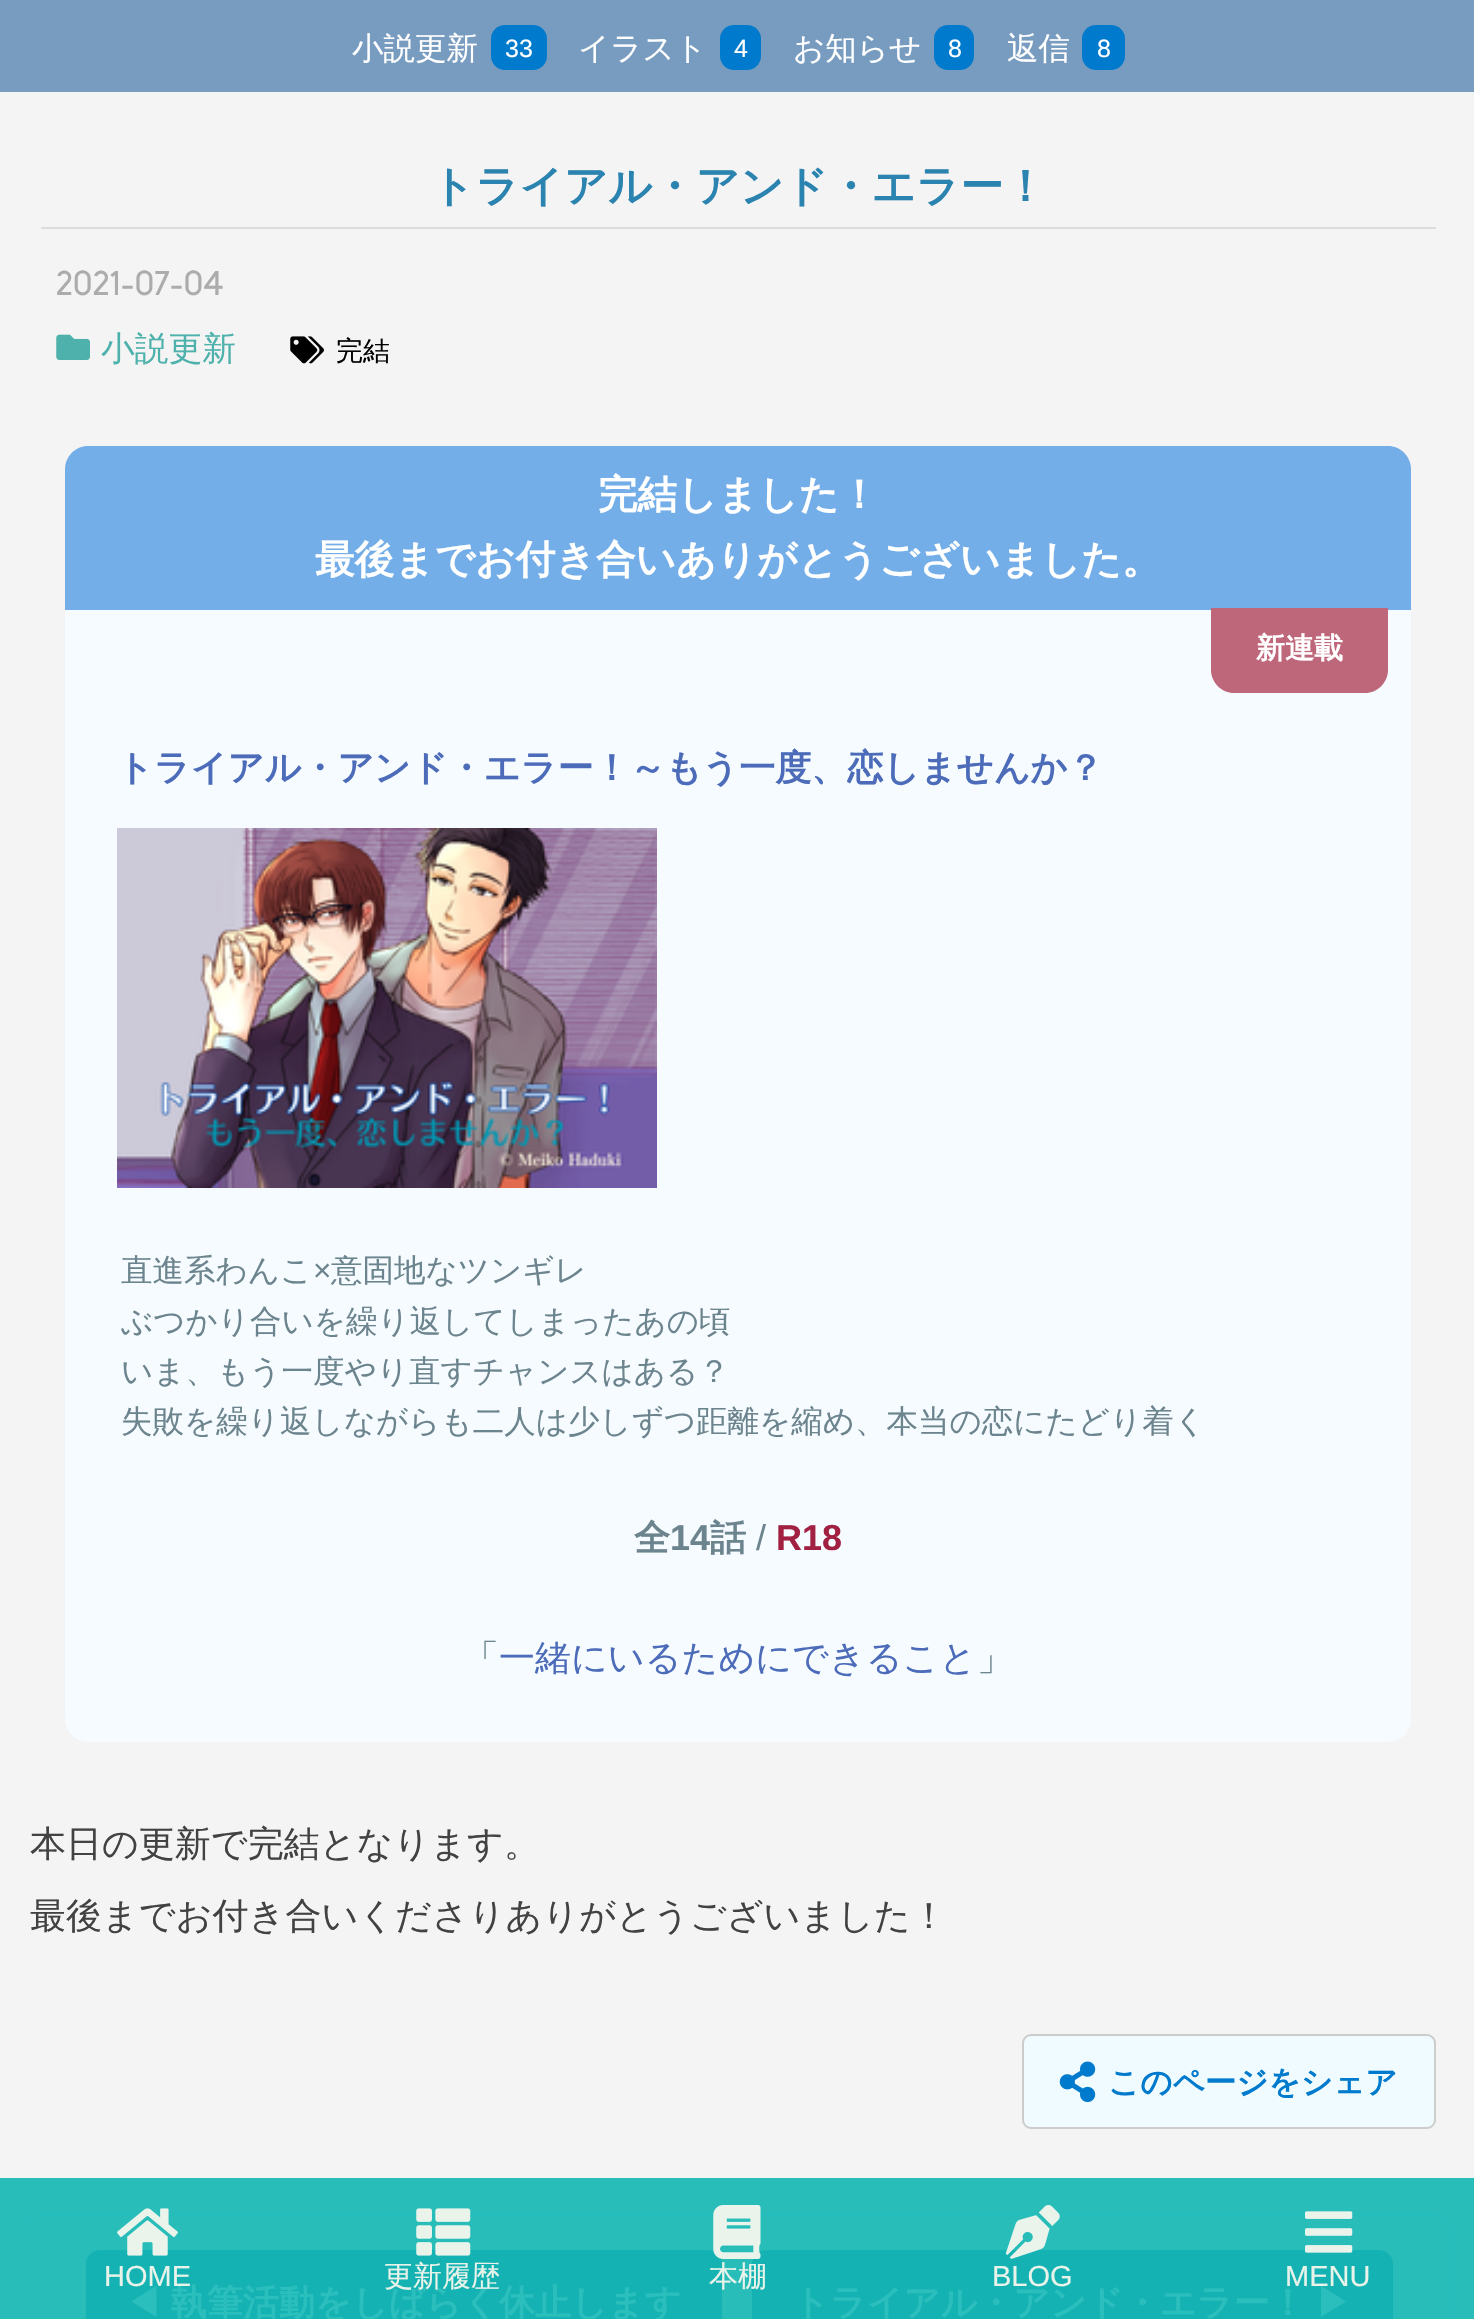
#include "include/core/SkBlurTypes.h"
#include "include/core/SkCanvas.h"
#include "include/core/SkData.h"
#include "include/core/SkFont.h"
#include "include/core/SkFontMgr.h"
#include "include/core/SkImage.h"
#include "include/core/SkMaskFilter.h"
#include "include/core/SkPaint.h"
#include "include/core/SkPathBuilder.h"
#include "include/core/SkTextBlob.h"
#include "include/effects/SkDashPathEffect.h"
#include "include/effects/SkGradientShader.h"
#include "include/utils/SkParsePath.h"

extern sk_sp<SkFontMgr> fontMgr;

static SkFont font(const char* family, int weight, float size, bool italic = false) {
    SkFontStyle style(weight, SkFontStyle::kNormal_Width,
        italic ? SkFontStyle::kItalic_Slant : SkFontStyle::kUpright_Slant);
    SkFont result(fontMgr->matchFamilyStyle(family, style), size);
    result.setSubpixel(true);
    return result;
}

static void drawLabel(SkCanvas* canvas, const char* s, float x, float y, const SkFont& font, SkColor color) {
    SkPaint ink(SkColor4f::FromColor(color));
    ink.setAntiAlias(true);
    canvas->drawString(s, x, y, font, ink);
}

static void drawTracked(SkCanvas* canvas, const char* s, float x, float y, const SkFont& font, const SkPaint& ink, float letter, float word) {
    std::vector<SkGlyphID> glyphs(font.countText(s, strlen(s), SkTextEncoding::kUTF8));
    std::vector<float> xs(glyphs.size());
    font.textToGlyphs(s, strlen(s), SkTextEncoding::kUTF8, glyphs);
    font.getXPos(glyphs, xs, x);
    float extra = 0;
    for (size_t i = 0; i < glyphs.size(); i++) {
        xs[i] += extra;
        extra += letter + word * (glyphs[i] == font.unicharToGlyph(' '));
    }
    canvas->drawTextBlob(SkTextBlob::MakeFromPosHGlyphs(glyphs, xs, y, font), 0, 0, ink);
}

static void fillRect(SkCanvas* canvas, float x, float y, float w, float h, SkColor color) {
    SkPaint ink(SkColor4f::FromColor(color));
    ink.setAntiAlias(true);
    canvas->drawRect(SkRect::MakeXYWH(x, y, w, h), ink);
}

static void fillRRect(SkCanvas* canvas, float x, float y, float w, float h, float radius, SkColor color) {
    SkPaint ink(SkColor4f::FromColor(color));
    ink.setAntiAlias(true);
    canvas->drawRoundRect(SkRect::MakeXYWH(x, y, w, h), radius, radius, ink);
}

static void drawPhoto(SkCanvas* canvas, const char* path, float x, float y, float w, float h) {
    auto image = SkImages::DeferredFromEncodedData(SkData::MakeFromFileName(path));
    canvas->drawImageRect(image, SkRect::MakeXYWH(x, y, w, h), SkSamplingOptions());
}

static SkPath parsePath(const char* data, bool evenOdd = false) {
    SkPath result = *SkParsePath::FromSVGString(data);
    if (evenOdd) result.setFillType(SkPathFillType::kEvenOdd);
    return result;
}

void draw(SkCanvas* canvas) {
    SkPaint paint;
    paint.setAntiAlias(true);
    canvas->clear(0xFFF4F4F4);
    fillRect(canvas, 0, 2178, 1474, 141, 0xFF29BDBA);
    fillRect(canvas, 0, 0, 1474, 92, 0xFF789CC0);
    SkFont font1 = font("WenQuanYi Zen Hei", 500, 31.5f);
    drawLabel(canvas, "小説更新", 352, 59, font1, 0xFFFFFFFF);
    fillRRect(canvas, 491, 25, 56, 45, 14, 0xFF007ACC);
    SkFont font2 = font("Liberation Sans", 400, 25);
    drawLabel(canvas, "33", 505, 57, font2, 0xFFFFFFFF);
    drawLabel(canvas, "イラスト", 578, 59, font1, 0xFFFFFFFF);
    fillRRect(canvas, 720, 25, 41, 45, 14, 0xFF007ACC);
    drawLabel(canvas, "4", 734, 57, font2, 0xFFFFFFFF);
    drawLabel(canvas, "お知らせ", 793, 59, font1, 0xFFFFFFFF);
    fillRRect(canvas, 934, 25, 40, 45, 14, 0xFF007ACC);
    drawLabel(canvas, "8", 948, 57, font2, 0xFFFFFFFF);
    drawLabel(canvas, "返信", 1007, 59, font1, 0xFFFFFFFF);
    fillRRect(canvas, 1082, 25, 43, 45, 14, 0xFF007ACC);
    drawLabel(canvas, "8", 1097, 57, font2, 0xFFFFFFFF);
    fillRect(canvas, 41, 227, 1395, 2, 0xFFDDDDDD);
    SkFont font3 = font("WenQuanYi Zen Hei", 700, 43.25f);
    drawLabel(canvas, "トライアル・アンド・エラー！", 431, 201, font3, 0xFF2B83AF);
    SkFont font4 = font("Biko", 400, 33.75f);
    drawLabel(canvas, "2021-07-04", 56, 295, font4, 0xFFACACAC);
    drawPhoto(canvas, "assets/img1.png", 56, 334, 34, 26);
    SkFont font5 = font("WenQuanYi Zen Hei", 500, 33.75f);
    drawLabel(canvas, "小説更新", 101, 360, font5, 0xFF4EB1AB);
    drawPhoto(canvas, "assets/img2.png", 290, 336, 34, 28);
    SkFont font6 = font("WenQuanYi Zen Hei", 500, 27);
    drawLabel(canvas, "完結", 336, 360, font6, 0xFF000000);
    paint.setColor(0xFF74AEE8);
    canvas->drawPath(parsePath("M88 446H1388C1400.5 446 1411 456.5 1411 469V610H65V469C65 456.5 75.5 446 88 446Z"), paint);
    SkFont font7 = font("WenQuanYi Zen Hei", 700, 39.6f);
    drawLabel(canvas, "完結しました！", 598, 508, font7, 0xFFFFFFFF);
    drawLabel(canvas, "最後までお付き合いありがとうございました。", 315, 573, font7, 0xFFFFFFFF);
    paint.setColor(0xFFF5FBFF);
    canvas->drawPath(parsePath("M65 610H1411V1719C1411 1731.5 1400.5 1742 1388 1742H88C75.5 1742 65 1731.5 65 1719Z"), paint);
    paint.setColor(0xFFBF677A);
    canvas->drawPath(parsePath("M1211 608H1388V670C1388 682.5 1377.5 693 1365 693H1234C1221.5 693 1211 682.5 1211 670Z"), paint);
    SkFont font8 = font("WenQuanYi Zen Hei", 700, 29);
    drawLabel(canvas, "新連載", 1256, 658, font8, 0xFFFFFFFF);
    SkFont font9 = font("WenQuanYi Zen Hei", 700, 36);
    drawLabel(canvas, "トライアル・アンド・エラー！～もう一度、恋しませんか？", 117, 780, font9, 0xFF4C6CBA);
    drawPhoto(canvas, "assets/img3.png", 117, 828, 540, 360);
    drawLabel(canvas, "直進系わんこ", 121, 1281, font1, 0xFF6C848D);
    SkFont font10 = font("Liberation Sans", 400, 31.5f);
    drawLabel(canvas, "×", 313, 1281, font10, 0xFF6C848D);
    drawLabel(canvas, "意固地なツンギレ", 331, 1281, font1, 0xFF6C848D);
    drawLabel(canvas, "ぶつかり合いを繰り返してしまったあの頃", 121, 1332, font1, 0xFF6C848D);
    drawLabel(canvas, "いま、もう一度やり直すチャンスはある？", 121, 1382, font1, 0xFF6C848D);
    drawLabel(canvas, "失敗を繰り返しながらも二人は少しずつ距離を縮め、本当の恋にたどり着く", 121, 1432, font1, 0xFF6C848D);
    drawLabel(canvas, "全", 634, 1550, font9, 0xFF6C848D);
    SkFont font11 = font("Liberation Sans", 700, 36);
    drawLabel(canvas, "14", 670, 1550, font11, 0xFF6C848D);
    drawLabel(canvas, "話", 710, 1550, font9, 0xFF6C848D);
    SkFont font12 = font("Liberation Sans", 400, 36);
    drawLabel(canvas, "/", 756, 1550, font12, 0xFF6C848D);
    drawLabel(canvas, "R18", 776, 1550, font11, 0xFFA22041);
    SkFont font13 = font("WenQuanYi Zen Hei", 500, 36);
    drawLabel(canvas, "「", 463, 1670, font13, 0xFF6C848D);
    drawLabel(canvas, "一緒にいるためにできること", 499, 1670, font13, 0xFF4C6CBA);
    drawLabel(canvas, "」", 977, 1670, font13, 0xFF6C848D);
    drawLabel(canvas, "本日の更新で完結となります。", 30, 1856, font13, 0xFF424242);
    drawLabel(canvas, "最後までお付き合いくださりありがとうございました！", 30, 1928, font13, 0xFF424242);
    paint.setColor(0xFFF0FBFF);
    canvas->drawRoundRect(SkRect::MakeXYWH(1023, 2035, 412, 93), 8, 8, paint);
    paint.setStroke(true);
    paint.setStrokeWidth(2);
    paint.setColor(0xFFCCCCCC);
    canvas->drawRoundRect(SkRect::MakeXYWH(1023, 2035, 412, 93), 8, 8, paint);
    drawPhoto(canvas, "assets/img4.png", 1059, 2061, 37, 42);
    SkFont font14 = font("WenQuanYi Zen Hei", 700, 31.5f);
    drawLabel(canvas, "このページをシェア", 1108, 2093, font14, 0xFF007ACC);
    paint.setColor(0xFF25BCBC);
    canvas->drawRoundRect(SkRect::MakeXYWH(24, 2215, 1429, 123), 17, 17, paint);
    fillRRect(canvas, 86, 2250, 636, 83, 14, 0xFF15B2B4);
    paint.setStroke(false);
    paint.setColor(0xFF2ABEBC);
    drawTracked(canvas, "◀ 執筆活動をしばらく休止します", 125, 2315, font9, paint, 0, -1);
    fillRRect(canvas, 752, 2250, 641, 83, 14, 0xFF15B2B4);
    drawTracked(canvas, "トライアル・アンド・エラー！ ▶", 793, 2315, font9, paint, 0, -1);
    drawPhoto(canvas, "assets/img5.png", 117, 2208, 61, 48);
    SkFont font15 = font("Liberation Sans", 400, 29);
    drawLabel(canvas, "HOME", 104, 2286, font15, 0xFFE8F3EA);
    drawPhoto(canvas, "assets/img6.png", 416, 2208, 55, 48);
    SkFont font16 = font("WenQuanYi Zen Hei", 500, 29);
    drawLabel(canvas, "更新履歴", 384, 2286, font16, 0xFFE8F3EA);
    drawPhoto(canvas, "assets/img7.png", 713, 2205, 48, 54);
    drawLabel(canvas, "本棚", 709, 2286, font16, 0xFFE8F3EA);
    drawPhoto(canvas, "assets/img8.png", 1005, 2205, 55, 54);
    drawLabel(canvas, "BLOG", 992, 2286, font15, 0xFFE8F3EA);
    drawPhoto(canvas, "assets/img9.png", 1305, 2211, 48, 42);
    drawLabel(canvas, "MENU", 1285, 2286, font15, 0xFFE8F3EA);
}
